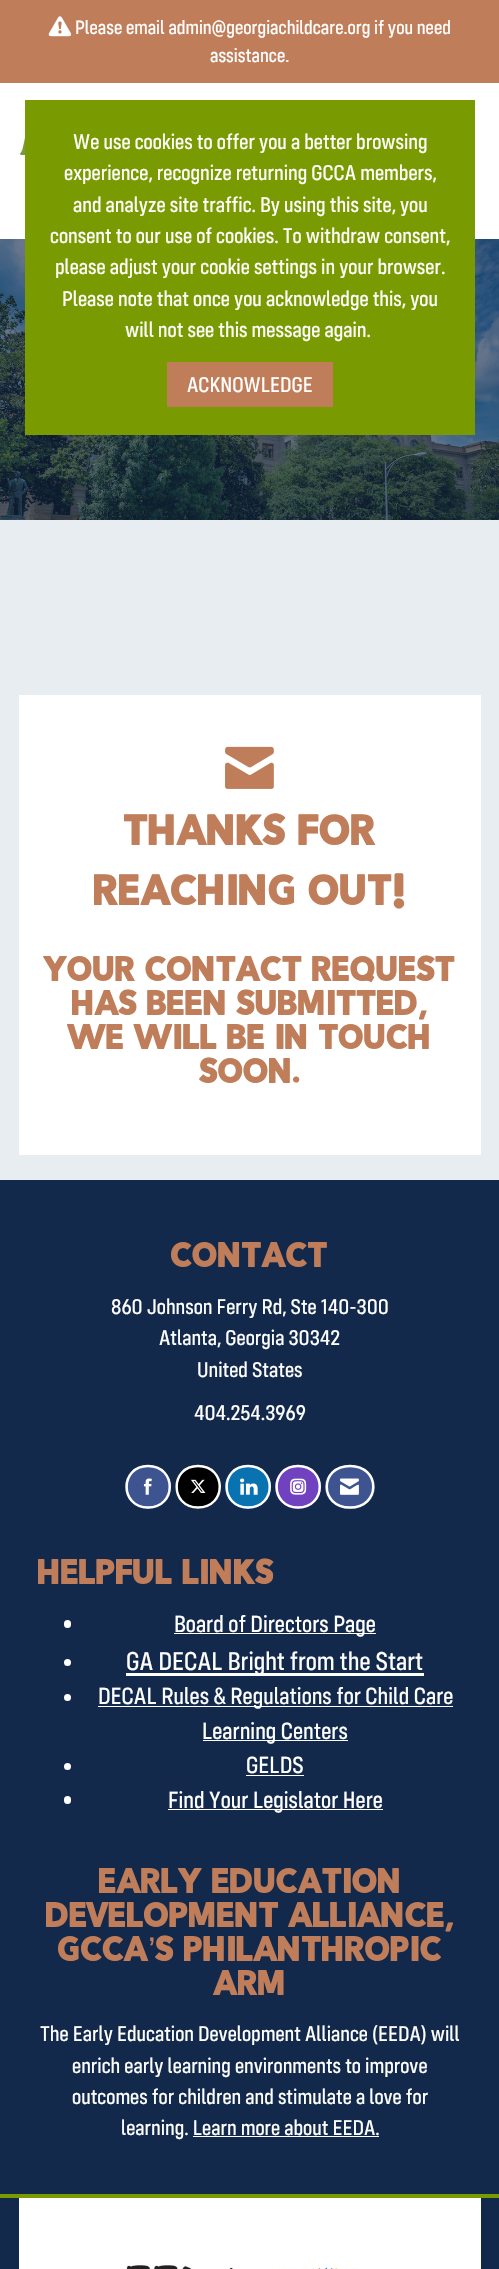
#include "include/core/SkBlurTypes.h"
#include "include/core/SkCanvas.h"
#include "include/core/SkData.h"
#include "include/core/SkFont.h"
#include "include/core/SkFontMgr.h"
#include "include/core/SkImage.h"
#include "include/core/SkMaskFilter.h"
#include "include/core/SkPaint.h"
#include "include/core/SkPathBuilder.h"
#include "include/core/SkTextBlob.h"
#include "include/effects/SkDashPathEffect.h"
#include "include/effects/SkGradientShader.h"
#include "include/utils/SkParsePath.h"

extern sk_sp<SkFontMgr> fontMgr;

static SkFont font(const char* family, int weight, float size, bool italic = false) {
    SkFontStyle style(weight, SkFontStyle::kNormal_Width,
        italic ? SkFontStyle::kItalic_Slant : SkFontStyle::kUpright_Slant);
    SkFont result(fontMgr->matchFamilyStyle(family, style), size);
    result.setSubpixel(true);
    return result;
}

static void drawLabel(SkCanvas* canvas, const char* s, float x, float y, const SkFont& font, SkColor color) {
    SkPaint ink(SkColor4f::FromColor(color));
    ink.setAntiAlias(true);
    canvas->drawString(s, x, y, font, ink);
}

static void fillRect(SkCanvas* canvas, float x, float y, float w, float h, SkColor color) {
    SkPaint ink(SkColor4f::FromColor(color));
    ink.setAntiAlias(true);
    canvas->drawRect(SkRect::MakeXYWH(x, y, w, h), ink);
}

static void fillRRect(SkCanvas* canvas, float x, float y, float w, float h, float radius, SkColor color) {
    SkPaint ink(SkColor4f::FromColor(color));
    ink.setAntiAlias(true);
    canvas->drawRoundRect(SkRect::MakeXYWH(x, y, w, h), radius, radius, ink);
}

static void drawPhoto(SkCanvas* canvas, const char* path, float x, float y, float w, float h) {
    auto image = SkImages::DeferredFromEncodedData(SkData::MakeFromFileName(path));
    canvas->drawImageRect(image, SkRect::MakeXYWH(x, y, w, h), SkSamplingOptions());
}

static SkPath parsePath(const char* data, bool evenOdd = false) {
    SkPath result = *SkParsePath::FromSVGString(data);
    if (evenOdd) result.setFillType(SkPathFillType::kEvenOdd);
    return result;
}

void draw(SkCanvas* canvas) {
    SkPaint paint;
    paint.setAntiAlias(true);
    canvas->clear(0xFFE8EDF1);
    fillRect(canvas, 0, 0, 499, 83, 0xFFC07D59);
    drawPhoto(canvas, "assets/img1.png", 48, 16, 24, 21);
    SkFont font1 = font("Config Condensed", 400, 20);
    drawLabel(canvas, "Please email admin@georgiachildcare.org if you need", 75, 34, font1, 0xFFFFFFFF);
    drawLabel(canvas, "assistance.", 210, 62, font1, 0xFFFFFFFF);
    fillRect(canvas, 0, 83, 499, 156, 0xFFFFFFFF);
    drawPhoto(canvas, "assets/img2.png", 19, 138, 6, 17);
    drawPhoto(canvas, "assets/img3.png", 0, 239, 499, 281);
    fillRect(canvas, 25, 100, 450, 335, 0xFF7A9A01);
    SkFont font2 = font("Config Condensed", 400, 22);
    drawLabel(canvas, "We use cookies to offer you a better browsing", 73, 149, font2, 0xFFFFFFFF);
    drawLabel(canvas, "experience, recognize returning GCCA members,", 64, 180, font2, 0xFFFFFFFF);
    drawLabel(canvas, "and analyze site traffic. By using this site, you", 73, 212, font2, 0xFFFFFFFF);
    drawLabel(canvas, "consent to our use of cookies. To withdraw consent,", 50, 243, font2, 0xFFFFFFFF);
    drawLabel(canvas, "please adjust your cookie settings in your browser.", 55, 274, font2, 0xFFFFFFFF);
    drawLabel(canvas, "Please note that once you acknowledge this, you", 62, 306, font2, 0xFFFFFFFF);
    drawLabel(canvas, "will not see this message again.", 125, 337, font2, 0xFFFFFFFF);
    fillRect(canvas, 167, 362, 166, 45, 0xFFC07D59);
    drawLabel(canvas, "ACKNOWLEDGE", 187, 392, font2, 0xFFFFFFFF);
    fillRect(canvas, 19, 695, 462, 460, 0xFFFFFFFF);
    drawPhoto(canvas, "assets/img4.png", 225, 746, 49, 43);
    SkFont font3 = font("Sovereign", 400, 42);
    drawLabel(canvas, "Thanks For", 124, 845, font3, 0xFFC07D59);
    drawLabel(canvas, "Reaching Out!", 94, 905, font3, 0xFFC07D59);
    SkFont font4 = font("Sovereign", 400, 34);
    drawLabel(canvas, "Your Contact Request", 44, 981, font4, 0xFFC07D59);
    drawLabel(canvas, "Has Been Submitted,", 72, 1015, font4, 0xFFC07D59);
    drawLabel(canvas, "We Will Be In Touch", 68, 1049, font4, 0xFFC07D59);
    drawLabel(canvas, "Soon.", 200, 1083, font4, 0xFFC07D59);
    fillRect(canvas, 0, 1180, 499, 1014, 0xFF13294B);
    drawLabel(canvas, "Contact", 171, 1267, font4, 0xFFC07D59);
    drawLabel(canvas, "860 Johnson Ferry Rd, Ste 140-300", 111, 1314, font2, 0xFFFFFFFF);
    drawLabel(canvas, "Atlanta, Georgia 30342", 159, 1345, font2, 0xFFFFFFFF);
    drawLabel(canvas, "United States", 197, 1377, font2, 0xFFFFFFFF);
    drawLabel(canvas, "404.254.3969", 194, 1420, font2, 0xFFFFFFFF);
    paint.setColor(0xFF3E5491);
    canvas->drawOval(SkRect::MakeXYWH(125, 1465, 46, 44), paint);
    paint.setStroke(true);
    paint.setStrokeWidth(2.5f);
    paint.setColor(0xFFFFFFFF);
    canvas->drawPath(parsePath("M148 1466C177 1466 177 1507.5 148 1507.5C119.5 1507.5 119.5 1466 148 1466Z"), paint);
    drawPhoto(canvas, "assets/img5.png", 143, 1478, 9, 17);
    paint.setStroke(false);
    paint.setColor(0xFF000000);
    canvas->drawOval(SkRect::MakeXYWH(175, 1465, 46, 44), paint);
    paint.setStroke(true);
    paint.setColor(0xFFFFFFFF);
    canvas->drawPath(parsePath("M198 1466C227 1466 227 1507.5 198 1507.5C169.5 1507.5 169.5 1466 198 1466Z"), paint);
    drawPhoto(canvas, "assets/img6.png", 191, 1479, 15, 14);
    paint.setStroke(false);
    paint.setColor(0xFF0972B1);
    canvas->drawOval(SkRect::MakeXYWH(225, 1465, 46, 44), paint);
    paint.setStroke(true);
    paint.setColor(0xFFFFFFFF);
    canvas->drawPath(parsePath("M248 1466C277 1466 277 1507.5 248 1507.5C219.5 1507.5 219.5 1466 248 1466Z"), paint);
    drawPhoto(canvas, "assets/img7.png", 240, 1478, 18, 17);
    paint.setStroke(false);
    paint.setColor(0xFF7042C0);
    canvas->drawOval(SkRect::MakeXYWH(275, 1465, 46, 44), paint);
    paint.setStroke(true);
    paint.setColor(0xFFFFFFFF);
    canvas->drawPath(parsePath("M298 1466C327 1466 327 1507.5 298 1507.5C269.5 1507.5 269.5 1466 298 1466Z"), paint);
    drawPhoto(canvas, "assets/img8.png", 290, 1478, 17, 17);
    paint.setStroke(false);
    paint.setColor(0xFF3E5491);
    canvas->drawOval(SkRect::MakeXYWH(325, 1465, 50, 44), paint);
    paint.setStroke(true);
    paint.setColor(0xFFFFFFFF);
    canvas->drawPath(parsePath("M350 1466C381 1466 381 1507.5 350 1507.5C319 1507.5 319 1466 350 1466Z"), paint);
    drawPhoto(canvas, "assets/img9.png", 340, 1478, 19, 17);
    drawLabel(canvas, "Helpful Links", 38, 1584, font4, 0xFFC07D59);
    fillRRect(canvas, 64, 1620, 7, 8, 3.5f, 0xFFFFFFFF);
    fillRect(canvas, 174, 1633, 202, 1, 0xFFFFFFFF);
    SkFont font5 = font("Config Condensed", 400, 24.25f);
    drawLabel(canvas, "Board of Directors Page", 174, 1632, font5, 0xFFFFFFFF);
    paint.setStroke(false);
    canvas->drawCircle(67.5f, 1662.5f, 3.5f, paint);
    fillRect(canvas, 126, 1673, 298, 3, 0xFFFFFFFF);
    SkFont font6 = font("Config Condensed", 400, 26.6f);
    drawLabel(canvas, "GA DECAL Bright from the Start", 126, 1670, font6, 0xFFFFFFFF);
    canvas->drawCircle(67.5f, 1697.5f, 3.5f, paint);
    fillRect(canvas, 98, 1706, 355, 1, 0xFFFFFFFF);
    drawLabel(canvas, "DECAL Rules & Regulations for Child Care", 98, 1704, font5, 0xFFFFFFFF);
    fillRect(canvas, 203, 1740, 145, 1, 0xFFFFFFFF);
    drawLabel(canvas, "Learning Centers", 202, 1739, font5, 0xFFFFFFFF);
    canvas->drawCircle(67.5f, 1766.5f, 3.5f, paint);
    drawLabel(canvas, "GELDS", 246, 1773, font5, 0xFFFFFFFF);
    fillRect(canvas, 246, 1775, 58, 1, 0xFFFFFFFF);
    fillRRect(canvas, 64, 1796, 7, 8, 3.5f, 0xFFFFFFFF);
    fillRect(canvas, 168, 1809, 215, 1, 0xFFFFFFFF);
    drawLabel(canvas, "Find Your Legislator Here", 168, 1808, font5, 0xFFFFFFFF);
    drawLabel(canvas, "Early Education", 99, 1893, font4, 0xFFC07D59);
    drawLabel(canvas, "Development Alliance,", 46, 1927, font4, 0xFFC07D59);
    drawLabel(canvas, "GCCA", 58, 1961, font4, 0xFFC07D59);
    SkFont font7 = font("Liberation Sans", 400, 34);
    drawLabel(canvas, "’", 148, 1961, font7, 0xFFC07D59);
    drawLabel(canvas, "s Philanthropic", 156, 1961, font4, 0xFFC07D59);
    drawLabel(canvas, "Arm", 214, 1995, font4, 0xFFC07D59);
    drawLabel(canvas, "The Early Education Development Alliance (EEDA) will", 40, 2041, font2, 0xFFFFFFFF);
    drawLabel(canvas, "enrich early learning environments to improve", 72, 2073, font2, 0xFFFFFFFF);
    drawLabel(canvas, "outcomes for children and stimulate a love for", 72, 2104, font2, 0xFFFFFFFF);
    drawLabel(canvas, "learning. Learn more about EEDA.", 121, 2135, font2, 0xFFFFFFFF);
    fillRect(canvas, 193, 2136, 186, 1, 0xFFFFFFFF);
    fillRect(canvas, 0, 2198, 499, 71, 0xFF13294B);
    fillRect(canvas, 0, 2194, 499, 4, 0xFF7A9A01);
    fillRect(canvas, 19, 2198, 462, 71, 0xFFFFFFFF);
    drawPhoto(canvas, "assets/img10.png", 126, 2265, 233, 4);
}
